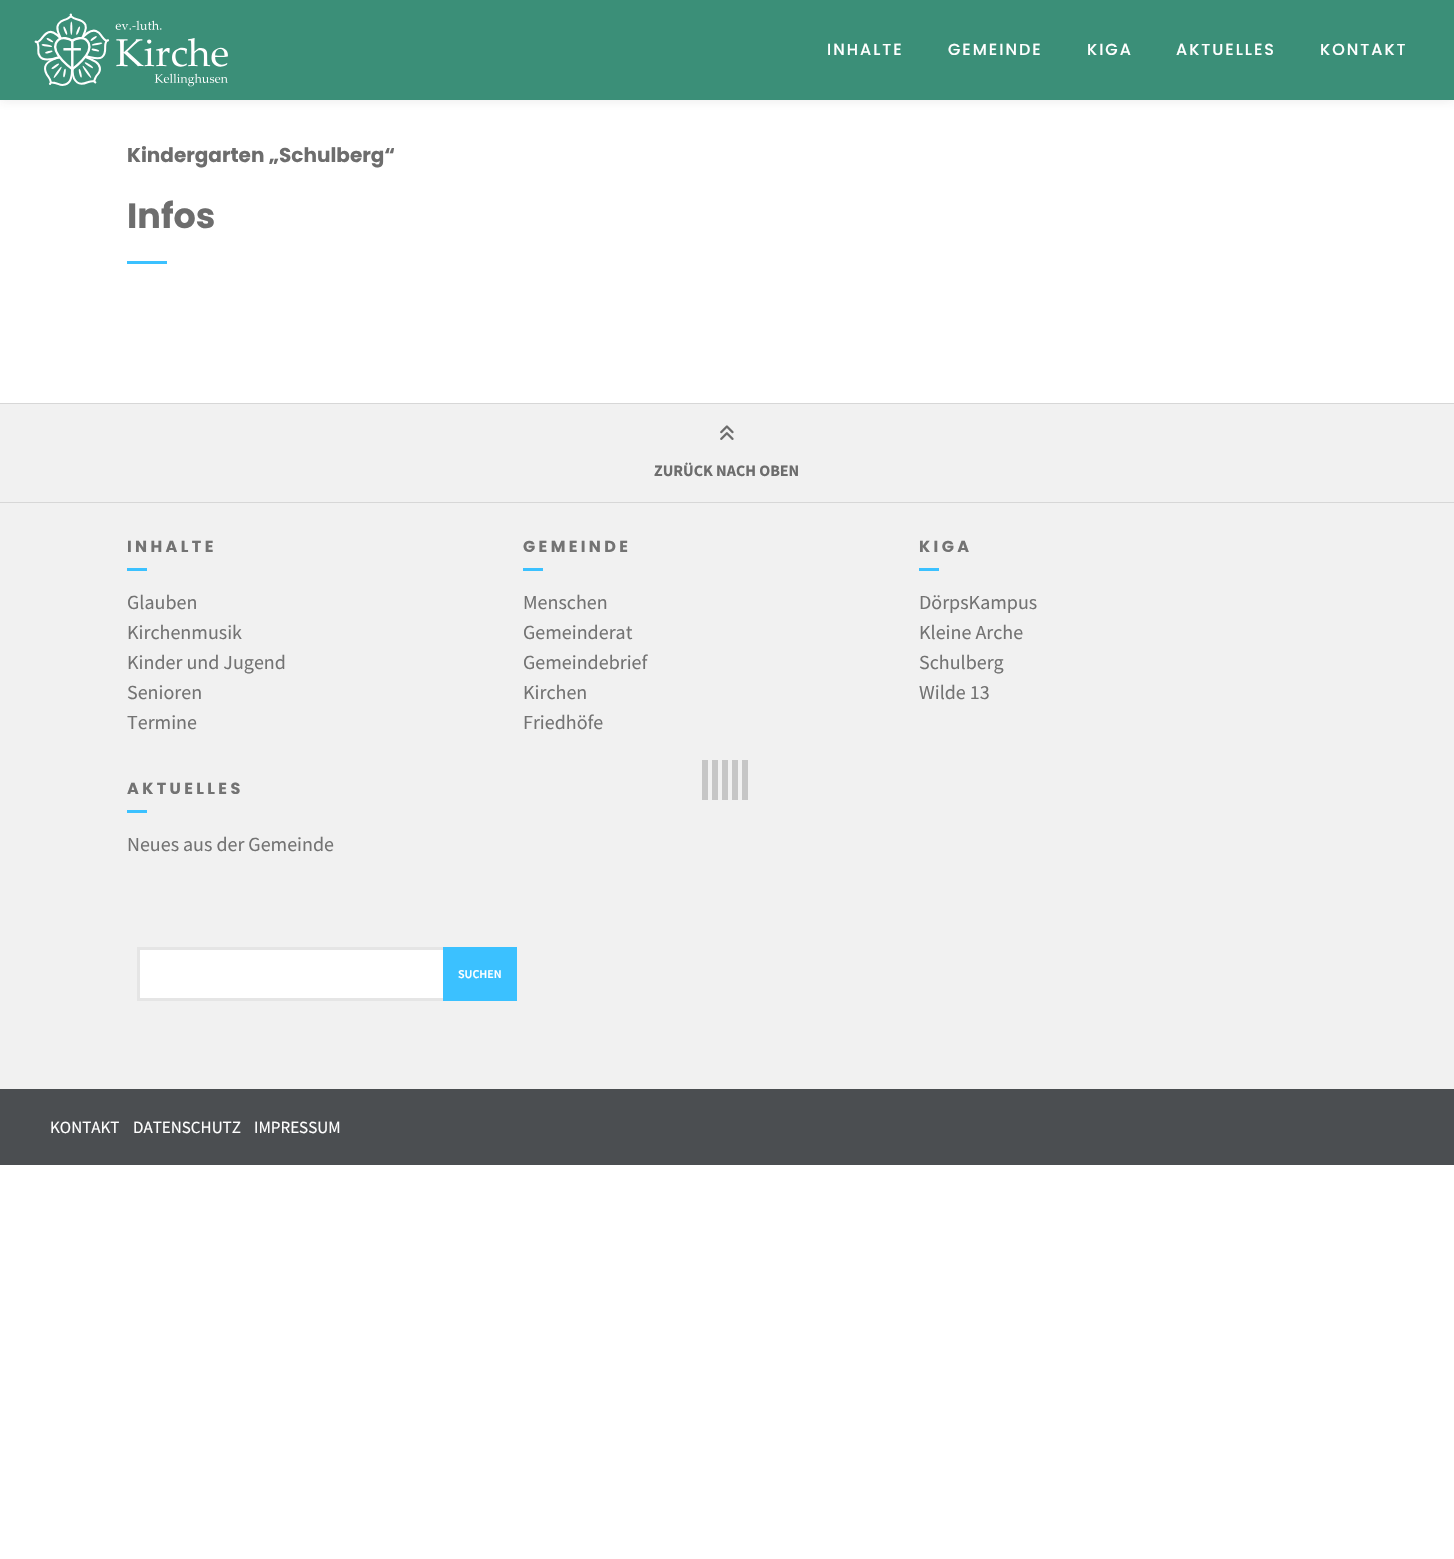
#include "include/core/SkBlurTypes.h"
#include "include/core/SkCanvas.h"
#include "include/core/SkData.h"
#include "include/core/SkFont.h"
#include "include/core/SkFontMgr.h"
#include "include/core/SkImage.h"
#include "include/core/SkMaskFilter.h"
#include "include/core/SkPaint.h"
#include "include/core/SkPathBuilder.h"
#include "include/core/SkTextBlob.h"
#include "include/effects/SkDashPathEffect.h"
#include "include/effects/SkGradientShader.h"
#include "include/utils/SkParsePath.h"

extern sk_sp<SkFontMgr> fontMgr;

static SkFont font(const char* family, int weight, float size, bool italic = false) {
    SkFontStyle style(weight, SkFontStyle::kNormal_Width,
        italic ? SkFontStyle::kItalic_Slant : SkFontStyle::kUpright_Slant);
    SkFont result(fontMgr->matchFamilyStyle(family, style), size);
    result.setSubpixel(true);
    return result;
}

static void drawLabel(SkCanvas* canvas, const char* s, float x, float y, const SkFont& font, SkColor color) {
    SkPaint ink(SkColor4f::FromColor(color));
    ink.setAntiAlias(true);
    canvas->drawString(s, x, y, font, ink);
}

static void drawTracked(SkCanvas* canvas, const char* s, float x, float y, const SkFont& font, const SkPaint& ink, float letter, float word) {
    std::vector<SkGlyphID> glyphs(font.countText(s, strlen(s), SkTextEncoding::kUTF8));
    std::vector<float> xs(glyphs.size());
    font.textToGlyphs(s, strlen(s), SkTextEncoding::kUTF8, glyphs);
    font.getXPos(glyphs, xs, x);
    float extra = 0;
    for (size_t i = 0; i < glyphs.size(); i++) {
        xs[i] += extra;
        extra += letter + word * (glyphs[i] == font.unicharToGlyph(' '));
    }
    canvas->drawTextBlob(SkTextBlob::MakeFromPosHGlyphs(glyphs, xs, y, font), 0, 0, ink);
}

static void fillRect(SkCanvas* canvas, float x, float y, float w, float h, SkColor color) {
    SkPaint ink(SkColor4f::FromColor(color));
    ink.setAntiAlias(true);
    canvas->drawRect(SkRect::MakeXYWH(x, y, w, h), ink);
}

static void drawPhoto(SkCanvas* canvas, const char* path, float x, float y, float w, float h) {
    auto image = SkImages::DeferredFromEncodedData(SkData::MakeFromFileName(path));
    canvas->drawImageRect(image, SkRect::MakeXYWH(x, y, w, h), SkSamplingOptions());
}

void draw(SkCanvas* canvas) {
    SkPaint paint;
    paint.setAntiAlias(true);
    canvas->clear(0xFFFFFFFF);
    paint.setColor(0x1A3B3B3B);
    paint.setMaskFilter(SkMaskFilter::MakeBlur(kNormal_SkBlurStyle, 5));
    canvas->drawRect(SkRect::MakeXYWH(0, 1, 1454, 100), paint);
    paint.setMaskFilter(nullptr);
    fillRect(canvas, 0, 0, 1454, 100, 0xFF3B8F78);
    drawPhoto(canvas, "assets/img1.png", 34, 13, 194, 74);
    SkFont font1 = font("Poppins", 500, 16);
    paint.setColor(0xFFFFFFFF);
    drawTracked(canvas, "INHALTE", 827, 55, font1, paint, 2, 0);
    drawTracked(canvas, "GEMEINDE", 948, 55, font1, paint, 2, 0);
    drawTracked(canvas, "KIGA", 1087, 55, font1, paint, 2, 0);
    drawTracked(canvas, "AKTUELLES", 1176, 55, font1, paint, 2, 0);
    drawTracked(canvas, "KONTAKT", 1320, 55, font1, paint, 2, 0);
    SkFont font2 = font("Poppins", 700, 20);
    drawLabel(canvas, "Kindergarten „Schulberg“", 127, 162, font2, 0xFF6D6D6D);
    SkFont font3 = font("Poppins", 700, 35);
    drawLabel(canvas, "Infos", 127, 228, font3, 0xFF6D6D6D);
    fillRect(canvas, 127, 261, 40, 3, 0xFF3BC1FF);
    fillRect(canvas, 0, 404, 1454, 98, 0xFFF1F1F1);
    fillRect(canvas, 0, 403, 1454, 1, 0xFFD7D7D7);
    fillRect(canvas, 0, 502, 1454, 1, 0xFFD7D7D7);
    drawPhoto(canvas, "assets/img2.png", 720, 425, 14, 15);
    SkFont font4 = font("Source Sans Pro", 700, 16);
    drawLabel(canvas, "ZURÜCK NACH OBEN", 654, 476, font4, 0xFF6D6D6D);
    fillRect(canvas, 0, 503, 1454, 586, 0xFFF1F1F1);
    SkFont font5 = font("Poppins", 700, 16);
    drawLabel(canvas, "I N H A L T E", 127, 552, font5, 0xFF737373);
    fillRect(canvas, 127, 568, 20, 3, 0xFF3BC1FF);
    SkFont font6 = font("Source Sans Pro", 400, 20);
    drawLabel(canvas, "Glauben", 127, 609, font6, 0xFF737373);
    drawLabel(canvas, "Kirchenmusik", 127, 639, font6, 0xFF737373);
    drawLabel(canvas, "Kinder und Jugend", 127, 669, font6, 0xFF737373);
    drawLabel(canvas, "Senioren", 127, 699, font6, 0xFF737373);
    drawLabel(canvas, "Termine", 127, 729, font6, 0xFF737373);
    drawLabel(canvas, "G E M E I N D E", 523, 552, font5, 0xFF737373);
    fillRect(canvas, 523, 568, 20, 3, 0xFF3BC1FF);
    drawLabel(canvas, "Menschen", 523, 609, font6, 0xFF737373);
    drawLabel(canvas, "Gemeinderat", 523, 639, font6, 0xFF737373);
    drawLabel(canvas, "Gemeindebrief", 523, 669, font6, 0xFF737373);
    drawLabel(canvas, "Kirchen", 523, 699, font6, 0xFF737373);
    drawLabel(canvas, "Friedhöfe", 523, 729, font6, 0xFF737373);
    drawLabel(canvas, "K I G A", 919, 552, font5, 0xFF737373);
    fillRect(canvas, 919, 568, 20, 3, 0xFF3BC1FF);
    drawLabel(canvas, "DörpsKampus", 919, 609, font6, 0xFF737373);
    drawLabel(canvas, "Kleine Arche", 919, 639, font6, 0xFF737373);
    drawLabel(canvas, "Schulberg", 919, 669, font6, 0xFF737373);
    drawLabel(canvas, "Wilde 13", 919, 699, font6, 0xFF737373);
    drawLabel(canvas, "A K T U E L L E S", 127, 794, font5, 0xFF737373);
    fillRect(canvas, 127, 810, 20, 3, 0xFF3BC1FF);
    drawLabel(canvas, "Neues aus der Gemeinde", 127, 851, font6, 0xFF737373);
    canvas->drawRect(SkRect::MakeXYWH(138.5f, 948.5f, 306, 51), paint);
    paint.setStroke(true);
    paint.setStrokeWidth(3);
    paint.setColor(0xFFE5E5E5);
    canvas->drawRect(SkRect::MakeXYWH(138.5f, 948.5f, 306, 51), paint);
    fillRect(canvas, 443, 947, 74, 54, 0xFF3BC1FF);
    SkFont font7 = font("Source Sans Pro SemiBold", 600, 12);
    drawLabel(canvas, "SUCHEN", 458, 978, font7, 0xFFFFFFFF);
    fillRect(canvas, 0, 1089, 1454, 76, 0xFF4B4E51);
    SkFont font8 = font("Source Sans Pro", 400, 17);
    drawLabel(canvas, "KONTAKT", 50, 1133, font8, 0xFFFFFFFF);
    drawLabel(canvas, "DATENSCHUTZ", 133, 1133, font8, 0xFFFFFFFF);
    drawLabel(canvas, "IMPRESSUM", 254, 1133, font8, 0xFFFFFFFF);
    fillRect(canvas, 702, 760, 6, 40, 0xFFC6C6C6);
    fillRect(canvas, 712, 760, 6, 40, 0xFFC6C6C6);
    fillRect(canvas, 722, 760, 6, 40, 0xFFC6C6C6);
    fillRect(canvas, 732, 760, 6, 40, 0xFFC6C6C6);
    fillRect(canvas, 742, 760, 6, 40, 0xFFC6C6C6);
}
